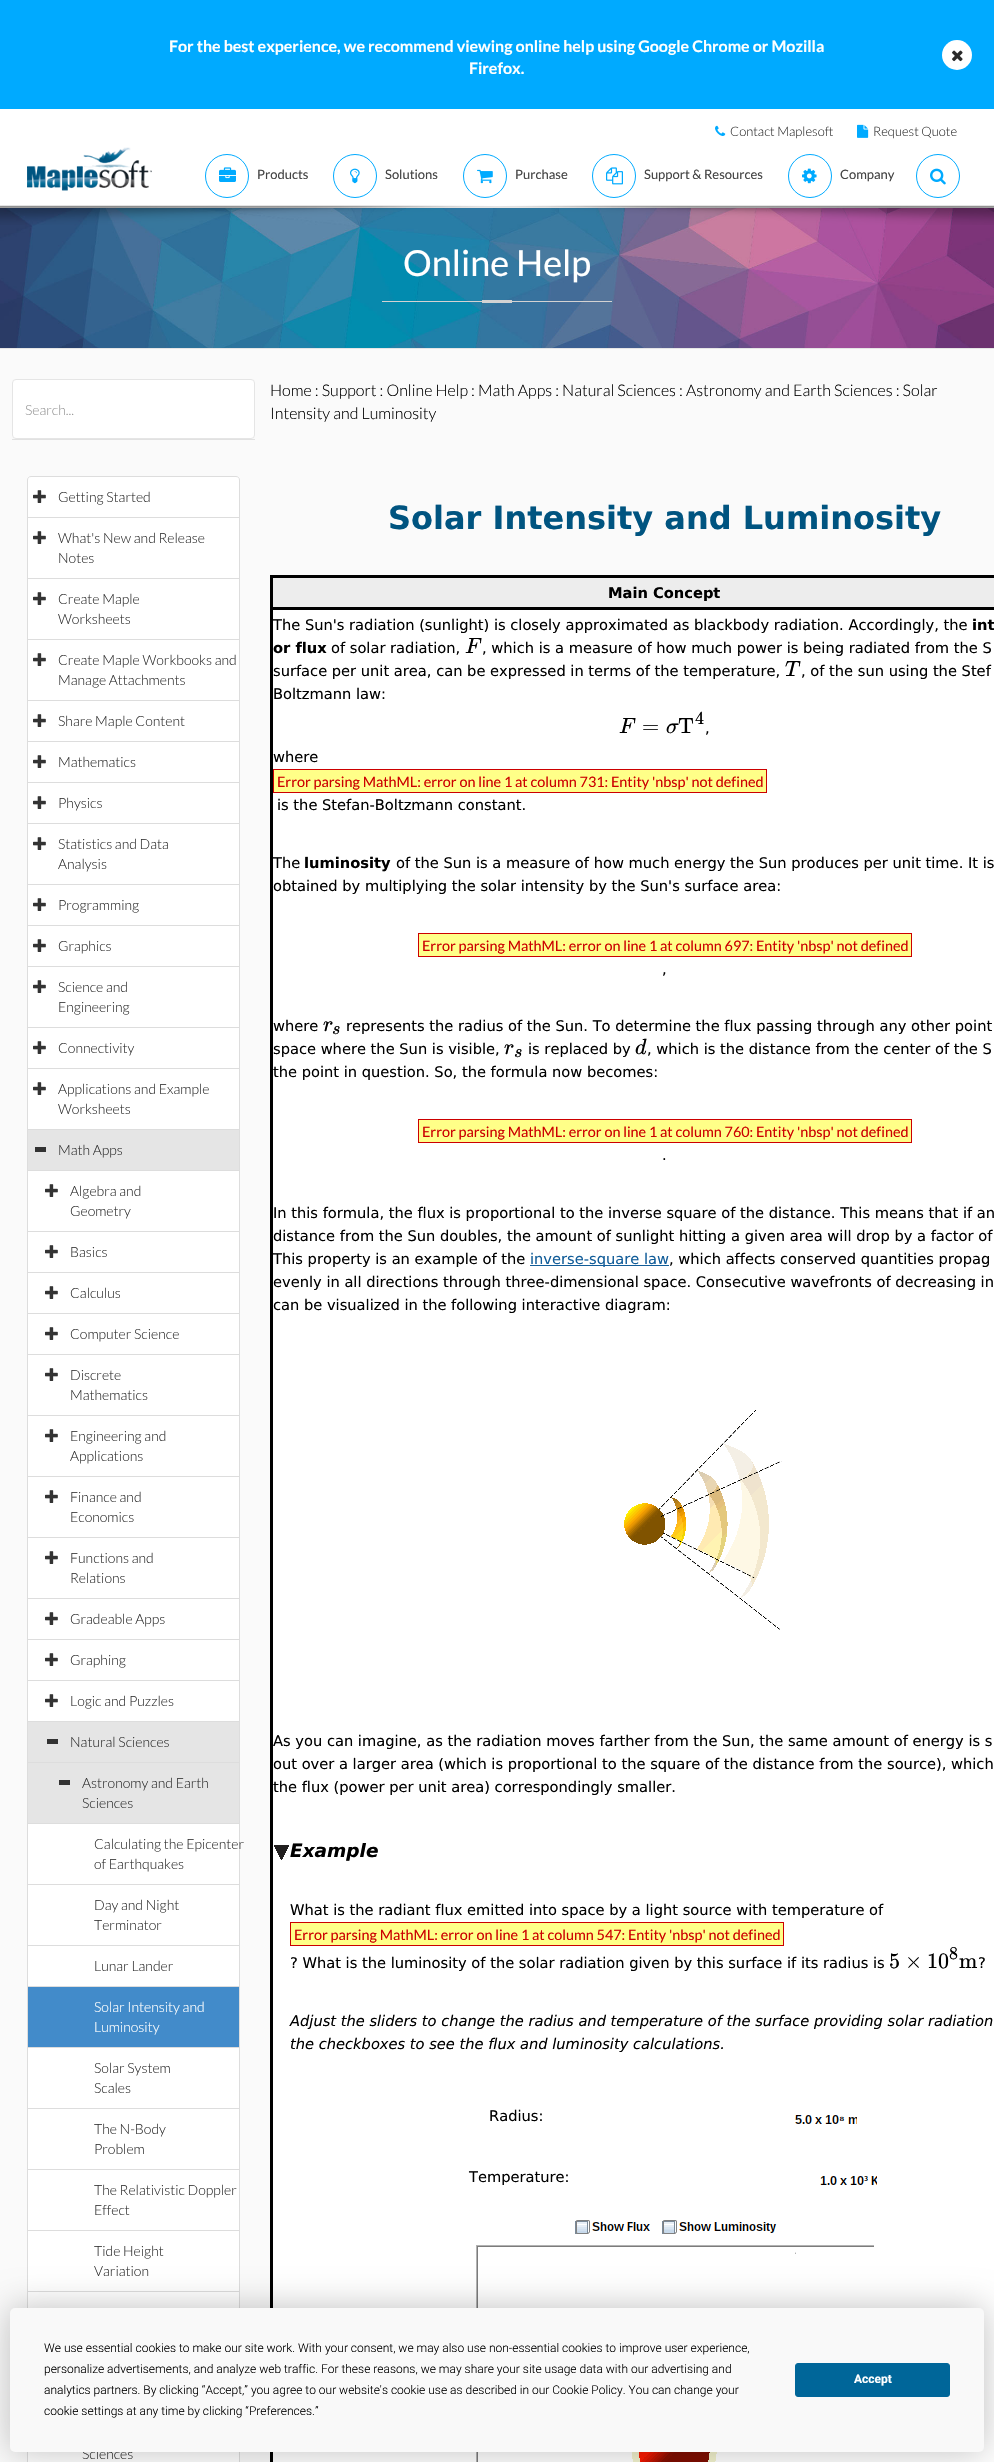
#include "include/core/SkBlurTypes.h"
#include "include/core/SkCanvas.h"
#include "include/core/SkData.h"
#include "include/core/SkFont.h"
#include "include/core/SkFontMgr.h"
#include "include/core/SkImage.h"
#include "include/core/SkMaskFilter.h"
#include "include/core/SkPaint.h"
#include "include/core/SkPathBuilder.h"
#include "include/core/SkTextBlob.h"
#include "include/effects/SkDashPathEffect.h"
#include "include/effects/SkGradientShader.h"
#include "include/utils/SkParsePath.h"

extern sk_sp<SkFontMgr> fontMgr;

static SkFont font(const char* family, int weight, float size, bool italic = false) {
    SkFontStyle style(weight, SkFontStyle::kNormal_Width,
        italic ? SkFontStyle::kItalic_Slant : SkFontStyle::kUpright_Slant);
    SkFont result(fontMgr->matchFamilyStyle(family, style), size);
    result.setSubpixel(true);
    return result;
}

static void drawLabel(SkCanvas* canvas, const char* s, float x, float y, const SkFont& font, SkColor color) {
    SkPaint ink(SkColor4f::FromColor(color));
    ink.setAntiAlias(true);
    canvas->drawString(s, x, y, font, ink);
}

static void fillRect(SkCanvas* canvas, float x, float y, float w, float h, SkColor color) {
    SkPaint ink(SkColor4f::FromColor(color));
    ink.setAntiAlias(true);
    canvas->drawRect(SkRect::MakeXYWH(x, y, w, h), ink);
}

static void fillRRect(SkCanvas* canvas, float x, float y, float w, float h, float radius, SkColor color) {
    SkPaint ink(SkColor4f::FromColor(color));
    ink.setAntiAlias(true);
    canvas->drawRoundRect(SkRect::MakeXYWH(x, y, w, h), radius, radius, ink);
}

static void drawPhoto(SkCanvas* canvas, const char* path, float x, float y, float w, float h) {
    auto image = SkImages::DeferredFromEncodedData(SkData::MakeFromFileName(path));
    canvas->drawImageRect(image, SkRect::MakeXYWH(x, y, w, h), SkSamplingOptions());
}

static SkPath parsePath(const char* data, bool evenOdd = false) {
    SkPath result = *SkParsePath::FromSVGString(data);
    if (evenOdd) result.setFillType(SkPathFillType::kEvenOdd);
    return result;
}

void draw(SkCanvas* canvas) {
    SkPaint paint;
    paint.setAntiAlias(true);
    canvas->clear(0xFFFAFAFA);
    fillRect(canvas, 0, 0, 994, 109, 0xFF00AAFF);
    SkFont font1 = font("Lato", 700, 16);
    drawLabel(canvas, "For the best experience, we recommend viewing online help using Google Chrome or Mozilla", 169, 52, font1, 0xFFFFFFFF);
    drawLabel(canvas, "Firefox.", 469, 74, font1, 0xFFFFFFFF);
    paint.setColor(0xFFFFFFFF);
    canvas->drawCircle(957, 55, 15, paint);
    drawPhoto(canvas, "assets/img1.png", 952, 50, 11, 12);
    fillRect(canvas, 0, 109, 994, 97, 0xFFFFFFFF);
    fillRect(canvas, 0, 206, 994, 2, 0xFFE5E5E5);
    drawPhoto(canvas, "assets/img2.png", 715, 125, 11, 11);
    SkFont font2 = font("Lato", 300, 13);
    drawLabel(canvas, "Contact Maplesoft", 730, 136, font2, 0xFF333333);
    drawPhoto(canvas, "assets/img3.png", 857, 124, 12, 14);
    drawLabel(canvas, "Request Quote", 873, 136, font2, 0xFF333333);
    drawPhoto(canvas, "assets/img4.png", 27, 147, 125, 44);
    paint.setStroke(true);
    paint.setStrokeWidth(1);
    paint.setColor(0xFF00AAFF);
    canvas->drawCircle(227, 176, 21.5f, paint);
    drawPhoto(canvas, "assets/img5.png", 219, 167, 17, 15);
    SkFont font3 = font("Lato", 400, 13);
    drawLabel(canvas, "Products", 257, 179, font3, 0xFF444444);
    canvas->drawCircle(355, 176, 21.5f, paint);
    drawPhoto(canvas, "assets/img6.png", 350, 168, 10, 16);
    drawLabel(canvas, "Solutions", 385, 179, font3, 0xFF444444);
    canvas->drawCircle(485, 176, 21.5f, paint);
    drawPhoto(canvas, "assets/img7.png", 477, 169, 16, 15);
    drawLabel(canvas, "Purchase", 515, 179, font3, 0xFF444444);
    canvas->drawCircle(614, 176, 21.5f, paint);
    drawPhoto(canvas, "assets/img8.png", 606, 167, 17, 18);
    drawLabel(canvas, "Support & Resources", 644, 179, font3, 0xFF444444);
    canvas->drawCircle(810, 176, 21.5f, paint);
    drawPhoto(canvas, "assets/img9.png", 802, 168, 15, 16);
    drawLabel(canvas, "Company", 840, 179, font3, 0xFF444444);
    canvas->drawCircle(938, 176, 21.5f, paint);
    drawPhoto(canvas, "assets/img10.png", 930, 168, 16, 17);
    drawPhoto(canvas, "assets/img12.png", 0, 208, 994, 140);
    drawPhoto(canvas, "assets/img11.png", 0, 205, 994, 20);
    fillRect(canvas, 0, 348, 994, 1, 0xFFE5E5E5);
    SkFont font4 = font("Lato", 400, 36);
    drawLabel(canvas, "Online Help", 403, 276, font4, 0xFFFFFFFF);
    fillRect(canvas, 482, 300, 30, 3, 0xFFD3D2D2);
    fillRect(canvas, 382, 301, 100, 1, 0xFFD3D2D2);
    fillRect(canvas, 512, 301, 100, 1, 0xFFD3D2D2);
    fillRect(canvas, 12, 439, 243, 1, 0xFFE1E1E1);
    paint.setStroke(false);
    paint.setColor(0xFFFFFFFF);
    canvas->drawRoundRect(SkRect::MakeXYWH(12.5f, 379.5f, 242, 59), 3.5f, 3.5f, paint);
    paint.setStroke(true);
    paint.setColor(0xFFE5E5E5);
    canvas->drawRoundRect(SkRect::MakeXYWH(12.5f, 379.5f, 242, 59), 3.5f, 3.5f, paint);
    SkFont font5 = font("Lato", 300, 14);
    drawLabel(canvas, "Search...", 25, 415, font5, 0xFF999999);
    paint.setStroke(false);
    paint.setColor(0xFFFFFFFF);
    canvas->drawPath(parsePath("M31 476.5H236C238 476.5 239.5 478 239.5 480V517.5H27.5V480C27.5 478 29 476.5 31 476.5Z"), paint);
    paint.setStroke(true);
    paint.setColor(0xFFDDDDDD);
    canvas->drawPath(parsePath("M31 476.5H236C238 476.5 239.5 478 239.5 480V517.5H27.5V480C27.5 478 29 476.5 31 476.5Z"), paint);
    drawPhoto(canvas, "assets/img13.png", 33, 490, 13, 13);
    drawLabel(canvas, "Getting Started", 58, 502, font5, 0xFF333333);
    paint.setStroke(false);
    paint.setColor(0xFFFFFFFF);
    canvas->drawRect(SkRect::MakeXYWH(27.5f, 517.5f, 212, 61), paint);
    paint.setStroke(true);
    paint.setColor(0xFFDDDDDD);
    canvas->drawRect(SkRect::MakeXYWH(27.5f, 517.5f, 212, 61), paint);
    drawPhoto(canvas, "assets/img13.png", 33, 531, 13, 13);
    drawLabel(canvas, "What's New and Release", 58, 543, font5, 0xFF333333);
    drawLabel(canvas, "Notes", 58, 563, font5, 0xFF333333);
    paint.setStroke(false);
    paint.setColor(0xFFFFFFFF);
    canvas->drawRect(SkRect::MakeXYWH(27.5f, 578.5f, 212, 61), paint);
    paint.setStroke(true);
    paint.setColor(0xFFDDDDDD);
    canvas->drawRect(SkRect::MakeXYWH(27.5f, 578.5f, 212, 61), paint);
    drawPhoto(canvas, "assets/img13.png", 33, 592, 13, 13);
    drawLabel(canvas, "Create Maple", 58, 604, font5, 0xFF333333);
    drawLabel(canvas, "Worksheets", 58, 624, font5, 0xFF333333);
    paint.setStroke(false);
    paint.setColor(0xFFFFFFFF);
    canvas->drawRect(SkRect::MakeXYWH(27.5f, 639.5f, 212, 61), paint);
    paint.setStroke(true);
    paint.setColor(0xFFDDDDDD);
    canvas->drawRect(SkRect::MakeXYWH(27.5f, 639.5f, 212, 61), paint);
    drawPhoto(canvas, "assets/img13.png", 33, 653, 13, 13);
    drawLabel(canvas, "Create Maple Workbooks and", 58, 665, font5, 0xFF333333);
    drawLabel(canvas, "Manage Attachments", 58, 685, font5, 0xFF333333);
    paint.setStroke(false);
    paint.setColor(0xFFFFFFFF);
    canvas->drawRect(SkRect::MakeXYWH(27.5f, 700.5f, 212, 41), paint);
    paint.setStroke(true);
    paint.setColor(0xFFDDDDDD);
    canvas->drawRect(SkRect::MakeXYWH(27.5f, 700.5f, 212, 41), paint);
    drawPhoto(canvas, "assets/img13.png", 33, 714, 13, 13);
    drawLabel(canvas, "Share Maple Content", 58, 726, font5, 0xFF333333);
    paint.setStroke(false);
    paint.setColor(0xFFFFFFFF);
    canvas->drawRect(SkRect::MakeXYWH(27.5f, 741.5f, 212, 41), paint);
    paint.setStroke(true);
    paint.setColor(0xFFDDDDDD);
    canvas->drawRect(SkRect::MakeXYWH(27.5f, 741.5f, 212, 41), paint);
    drawPhoto(canvas, "assets/img13.png", 33, 755, 13, 13);
    drawLabel(canvas, "Mathematics", 58, 767, font5, 0xFF333333);
    paint.setStroke(false);
    paint.setColor(0xFFFFFFFF);
    canvas->drawRect(SkRect::MakeXYWH(27.5f, 782.5f, 212, 41), paint);
    paint.setStroke(true);
    paint.setColor(0xFFDDDDDD);
    canvas->drawRect(SkRect::MakeXYWH(27.5f, 782.5f, 212, 41), paint);
    drawPhoto(canvas, "assets/img13.png", 33, 796, 13, 13);
    drawLabel(canvas, "Physics", 58, 808, font5, 0xFF333333);
    paint.setStroke(false);
    paint.setColor(0xFFFFFFFF);
    canvas->drawRect(SkRect::MakeXYWH(27.5f, 823.5f, 212, 61), paint);
    paint.setStroke(true);
    paint.setColor(0xFFDDDDDD);
    canvas->drawRect(SkRect::MakeXYWH(27.5f, 823.5f, 212, 61), paint);
    drawPhoto(canvas, "assets/img13.png", 33, 837, 13, 13);
    drawLabel(canvas, "Statistics and Data", 58, 849, font5, 0xFF333333);
    drawLabel(canvas, "Analysis", 58, 869, font5, 0xFF333333);
    paint.setStroke(false);
    paint.setColor(0xFFFFFFFF);
    canvas->drawRect(SkRect::MakeXYWH(27.5f, 884.5f, 212, 41), paint);
    paint.setStroke(true);
    paint.setColor(0xFFDDDDDD);
    canvas->drawRect(SkRect::MakeXYWH(27.5f, 884.5f, 212, 41), paint);
    drawPhoto(canvas, "assets/img13.png", 33, 898, 13, 13);
    drawLabel(canvas, "Programming", 58, 910, font5, 0xFF333333);
    paint.setStroke(false);
    paint.setColor(0xFFFFFFFF);
    canvas->drawRect(SkRect::MakeXYWH(27.5f, 925.5f, 212, 41), paint);
    paint.setStroke(true);
    paint.setColor(0xFFDDDDDD);
    canvas->drawRect(SkRect::MakeXYWH(27.5f, 925.5f, 212, 41), paint);
    drawPhoto(canvas, "assets/img13.png", 33, 939, 13, 13);
    drawLabel(canvas, "Graphics", 58, 951, font5, 0xFF333333);
    paint.setStroke(false);
    paint.setColor(0xFFFFFFFF);
    canvas->drawRect(SkRect::MakeXYWH(27.5f, 966.5f, 212, 61), paint);
    paint.setStroke(true);
    paint.setColor(0xFFDDDDDD);
    canvas->drawRect(SkRect::MakeXYWH(27.5f, 966.5f, 212, 61), paint);
    drawPhoto(canvas, "assets/img13.png", 33, 980, 13, 13);
    drawLabel(canvas, "Science and", 58, 992, font5, 0xFF333333);
    drawLabel(canvas, "Engineering", 58, 1012, font5, 0xFF333333);
    paint.setStroke(false);
    paint.setColor(0xFFFFFFFF);
    canvas->drawRect(SkRect::MakeXYWH(27.5f, 1027.5f, 212, 41), paint);
    paint.setStroke(true);
    paint.setColor(0xFFDDDDDD);
    canvas->drawRect(SkRect::MakeXYWH(27.5f, 1027.5f, 212, 41), paint);
    drawPhoto(canvas, "assets/img13.png", 33, 1041, 13, 13);
    drawLabel(canvas, "Connectivity", 58, 1053, font5, 0xFF333333);
    paint.setStroke(false);
    paint.setColor(0xFFFFFFFF);
    canvas->drawRect(SkRect::MakeXYWH(27.5f, 1068.5f, 212, 61), paint);
    paint.setStroke(true);
    paint.setColor(0xFFDDDDDD);
    canvas->drawRect(SkRect::MakeXYWH(27.5f, 1068.5f, 212, 61), paint);
    drawPhoto(canvas, "assets/img13.png", 33, 1082, 13, 13);
    drawLabel(canvas, "Applications and Example", 58, 1094, font5, 0xFF333333);
    drawLabel(canvas, "Worksheets", 58, 1114, font5, 0xFF333333);
    paint.setStroke(false);
    paint.setColor(0xFFE5E5E5);
    canvas->drawRect(SkRect::MakeXYWH(27.5f, 1129.5f, 212, 41), paint);
    paint.setStroke(true);
    paint.setColor(0xFFDDDDDD);
    canvas->drawRect(SkRect::MakeXYWH(27.5f, 1129.5f, 212, 41), paint);
    fillRect(canvas, 35, 1147, 11, 5, 0xFF333333);
    drawLabel(canvas, "Math Apps", 58, 1155, font5, 0xFF333333);
    paint.setStroke(false);
    paint.setColor(0xFFFFFFFF);
    canvas->drawRect(SkRect::MakeXYWH(27.5f, 1170.5f, 212, 61), paint);
    paint.setStroke(true);
    paint.setColor(0xFFDDDDDD);
    canvas->drawRect(SkRect::MakeXYWH(27.5f, 1170.5f, 212, 61), paint);
    drawPhoto(canvas, "assets/img13.png", 45, 1184, 13, 13);
    drawLabel(canvas, "Algebra and", 70, 1196, font5, 0xFF333333);
    drawLabel(canvas, "Geometry", 70, 1216, font5, 0xFF333333);
    paint.setStroke(false);
    paint.setColor(0xFFFFFFFF);
    canvas->drawRect(SkRect::MakeXYWH(27.5f, 1231.5f, 212, 41), paint);
    paint.setStroke(true);
    paint.setColor(0xFFDDDDDD);
    canvas->drawRect(SkRect::MakeXYWH(27.5f, 1231.5f, 212, 41), paint);
    drawPhoto(canvas, "assets/img13.png", 45, 1245, 13, 13);
    drawLabel(canvas, "Basics", 70, 1257, font5, 0xFF333333);
    paint.setStroke(false);
    paint.setColor(0xFFFFFFFF);
    canvas->drawRect(SkRect::MakeXYWH(27.5f, 1272.5f, 212, 41), paint);
    paint.setStroke(true);
    paint.setColor(0xFFDDDDDD);
    canvas->drawRect(SkRect::MakeXYWH(27.5f, 1272.5f, 212, 41), paint);
    drawPhoto(canvas, "assets/img13.png", 45, 1286, 13, 13);
    drawLabel(canvas, "Calculus", 70, 1298, font5, 0xFF333333);
    paint.setStroke(false);
    paint.setColor(0xFFFFFFFF);
    canvas->drawRect(SkRect::MakeXYWH(27.5f, 1313.5f, 212, 41), paint);
    paint.setStroke(true);
    paint.setColor(0xFFDDDDDD);
    canvas->drawRect(SkRect::MakeXYWH(27.5f, 1313.5f, 212, 41), paint);
    drawPhoto(canvas, "assets/img13.png", 45, 1327, 13, 13);
    drawLabel(canvas, "Computer Science", 70, 1339, font5, 0xFF333333);
    paint.setStroke(false);
    paint.setColor(0xFFFFFFFF);
    canvas->drawRect(SkRect::MakeXYWH(27.5f, 1354.5f, 212, 61), paint);
    paint.setStroke(true);
    paint.setColor(0xFFDDDDDD);
    canvas->drawRect(SkRect::MakeXYWH(27.5f, 1354.5f, 212, 61), paint);
    drawPhoto(canvas, "assets/img13.png", 45, 1368, 13, 13);
    drawLabel(canvas, "Discrete", 70, 1380, font5, 0xFF333333);
    drawLabel(canvas, "Mathematics", 70, 1400, font5, 0xFF333333);
    paint.setStroke(false);
    paint.setColor(0xFFFFFFFF);
    canvas->drawRect(SkRect::MakeXYWH(27.5f, 1415.5f, 212, 61), paint);
    paint.setStroke(true);
    paint.setColor(0xFFDDDDDD);
    canvas->drawRect(SkRect::MakeXYWH(27.5f, 1415.5f, 212, 61), paint);
    drawPhoto(canvas, "assets/img13.png", 45, 1429, 13, 13);
    drawLabel(canvas, "Engineering and", 70, 1441, font5, 0xFF333333);
    drawLabel(canvas, "Applications", 70, 1461, font5, 0xFF333333);
    paint.setStroke(false);
    paint.setColor(0xFFFFFFFF);
    canvas->drawRect(SkRect::MakeXYWH(27.5f, 1476.5f, 212, 61), paint);
    paint.setStroke(true);
    paint.setColor(0xFFDDDDDD);
    canvas->drawRect(SkRect::MakeXYWH(27.5f, 1476.5f, 212, 61), paint);
    drawPhoto(canvas, "assets/img13.png", 45, 1490, 13, 13);
    drawLabel(canvas, "Finance and", 70, 1502, font5, 0xFF333333);
    drawLabel(canvas, "Economics", 70, 1522, font5, 0xFF333333);
    paint.setStroke(false);
    paint.setColor(0xFFFFFFFF);
    canvas->drawRect(SkRect::MakeXYWH(27.5f, 1537.5f, 212, 61), paint);
    paint.setStroke(true);
    paint.setColor(0xFFDDDDDD);
    canvas->drawRect(SkRect::MakeXYWH(27.5f, 1537.5f, 212, 61), paint);
    drawPhoto(canvas, "assets/img13.png", 45, 1551, 13, 13);
    drawLabel(canvas, "Functions and", 70, 1563, font5, 0xFF333333);
    drawLabel(canvas, "Relations", 70, 1583, font5, 0xFF333333);
    paint.setStroke(false);
    paint.setColor(0xFFFFFFFF);
    canvas->drawRect(SkRect::MakeXYWH(27.5f, 1598.5f, 212, 41), paint);
    paint.setStroke(true);
    paint.setColor(0xFFDDDDDD);
    canvas->drawRect(SkRect::MakeXYWH(27.5f, 1598.5f, 212, 41), paint);
    drawPhoto(canvas, "assets/img13.png", 45, 1612, 13, 13);
    drawLabel(canvas, "Gradeable Apps", 70, 1624, font5, 0xFF333333);
    paint.setStroke(false);
    paint.setColor(0xFFFFFFFF);
    canvas->drawRect(SkRect::MakeXYWH(27.5f, 1639.5f, 212, 41), paint);
    paint.setStroke(true);
    paint.setColor(0xFFDDDDDD);
    canvas->drawRect(SkRect::MakeXYWH(27.5f, 1639.5f, 212, 41), paint);
    drawPhoto(canvas, "assets/img13.png", 45, 1653, 13, 13);
    drawLabel(canvas, "Graphing", 70, 1665, font5, 0xFF333333);
    paint.setStroke(false);
    paint.setColor(0xFFFFFFFF);
    canvas->drawRect(SkRect::MakeXYWH(27.5f, 1680.5f, 212, 41), paint);
    paint.setStroke(true);
    paint.setColor(0xFFDDDDDD);
    canvas->drawRect(SkRect::MakeXYWH(27.5f, 1680.5f, 212, 41), paint);
    drawPhoto(canvas, "assets/img13.png", 45, 1694, 13, 13);
    drawLabel(canvas, "Logic and Puzzles", 70, 1706, font5, 0xFF333333);
    paint.setStroke(false);
    paint.setColor(0xFFE5E5E5);
    canvas->drawRect(SkRect::MakeXYWH(27.5f, 1721.5f, 212, 41), paint);
    paint.setStroke(true);
    paint.setColor(0xFFDDDDDD);
    canvas->drawRect(SkRect::MakeXYWH(27.5f, 1721.5f, 212, 41), paint);
    fillRect(canvas, 47, 1739, 11, 5, 0xFF333333);
    drawLabel(canvas, "Natural Sciences", 70, 1747, font5, 0xFF333333);
    paint.setStroke(false);
    paint.setColor(0xFFE5E5E5);
    canvas->drawRect(SkRect::MakeXYWH(27.5f, 1762.5f, 212, 61), paint);
    paint.setStroke(true);
    paint.setColor(0xFFDDDDDD);
    canvas->drawRect(SkRect::MakeXYWH(27.5f, 1762.5f, 212, 61), paint);
    fillRect(canvas, 59, 1780, 11, 5, 0xFF333333);
    drawLabel(canvas, "Astronomy and Earth", 82, 1788, font5, 0xFF333333);
    drawLabel(canvas, "Sciences", 82, 1808, font5, 0xFF333333);
    paint.setStroke(false);
    paint.setColor(0xFFFFFFFF);
    canvas->drawRect(SkRect::MakeXYWH(27.5f, 1823.5f, 212, 61), paint);
    paint.setStroke(true);
    paint.setColor(0xFFDDDDDD);
    canvas->drawRect(SkRect::MakeXYWH(27.5f, 1823.5f, 212, 61), paint);
    drawLabel(canvas, "Calculating the Epicenter", 94, 1849, font5, 0xFF333333);
    drawLabel(canvas, "of Earthquakes", 94, 1869, font5, 0xFF333333);
    paint.setStroke(false);
    paint.setColor(0xFFFFFFFF);
    canvas->drawRect(SkRect::MakeXYWH(27.5f, 1884.5f, 212, 61), paint);
    paint.setStroke(true);
    paint.setColor(0xFFDDDDDD);
    canvas->drawRect(SkRect::MakeXYWH(27.5f, 1884.5f, 212, 61), paint);
    drawLabel(canvas, "Day and Night", 94, 1910, font5, 0xFF333333);
    drawLabel(canvas, "Terminator", 94, 1930, font5, 0xFF333333);
    paint.setStroke(false);
    paint.setColor(0xFFFFFFFF);
    canvas->drawRect(SkRect::MakeXYWH(27.5f, 1945.5f, 212, 41), paint);
    paint.setStroke(true);
    paint.setColor(0xFFDDDDDD);
    canvas->drawRect(SkRect::MakeXYWH(27.5f, 1945.5f, 212, 41), paint);
    drawLabel(canvas, "Lunar Lander", 94, 1971, font5, 0xFF333333);
    paint.setStroke(false);
    paint.setColor(0xFF428BCA);
    canvas->drawRect(SkRect::MakeXYWH(27.5f, 1986.5f, 212, 61), paint);
    paint.setStroke(true);
    paint.setColor(0xFFDDDDDD);
    canvas->drawRect(SkRect::MakeXYWH(27.5f, 1986.5f, 212, 61), paint);
    drawLabel(canvas, "Solar Intensity and", 94, 2012, font5, 0xFFFFFFFF);
    drawLabel(canvas, "Luminosity", 94, 2032, font5, 0xFFFFFFFF);
    paint.setStroke(false);
    paint.setColor(0xFFFFFFFF);
    canvas->drawRect(SkRect::MakeXYWH(27.5f, 2047.5f, 212, 61), paint);
    paint.setStroke(true);
    paint.setColor(0xFFDDDDDD);
    canvas->drawRect(SkRect::MakeXYWH(27.5f, 2047.5f, 212, 61), paint);
    drawLabel(canvas, "Solar System", 94, 2073, font5, 0xFF333333);
    drawLabel(canvas, "Scales", 94, 2093, font5, 0xFF333333);
    paint.setStroke(false);
    paint.setColor(0xFFFFFFFF);
    canvas->drawRect(SkRect::MakeXYWH(27.5f, 2108.5f, 212, 61), paint);
    paint.setStroke(true);
    paint.setColor(0xFFDDDDDD);
    canvas->drawRect(SkRect::MakeXYWH(27.5f, 2108.5f, 212, 61), paint);
    drawLabel(canvas, "The N-Body", 94, 2134, font5, 0xFF333333);
    drawLabel(canvas, "Problem", 94, 2154, font5, 0xFF333333);
    paint.setStroke(false);
    paint.setColor(0xFFFFFFFF);
    canvas->drawRect(SkRect::MakeXYWH(27.5f, 2169.5f, 212, 61), paint);
    paint.setStroke(true);
    paint.setColor(0xFFDDDDDD);
    canvas->drawRect(SkRect::MakeXYWH(27.5f, 2169.5f, 212, 61), paint);
    drawLabel(canvas, "The Relativistic Doppler", 94, 2195, font5, 0xFF333333);
    drawLabel(canvas, "Effect", 94, 2215, font5, 0xFF333333);
    paint.setStroke(false);
    paint.setColor(0xFFFFFFFF);
    canvas->drawRect(SkRect::MakeXYWH(27.5f, 2230.5f, 212, 61), paint);
    paint.setStroke(true);
    paint.setColor(0xFFDDDDDD);
    canvas->drawRect(SkRect::MakeXYWH(27.5f, 2230.5f, 212, 61), paint);
    drawLabel(canvas, "Tide Height", 94, 2256, font5, 0xFF333333);
    drawLabel(canvas, "Variation", 94, 2276, font5, 0xFF333333);
    fillRect(canvas, 28, 2292, 211, 16, 0xFFFFFFFF);
    canvas->drawRect(SkRect::MakeXYWH(27.5f, 2291.5f, 212, 61), paint);
    fillRect(canvas, 28, 2452, 211, 10, 0xFFFFFFFF);
    canvas->drawRect(SkRect::MakeXYWH(27.5f, 2413.5f, 212, 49), paint);
    drawLabel(canvas, "Sciences", 82, 2459, font5, 0xFF333333);
    SkFont font6 = font("Lato", 300, 16);
    drawLabel(canvas, "Home : Support : Online Help : Math Apps : Natural Sciences : Astronomy and Earth Sciences : Solar", 270, 396, font6, 0xFF000000);
    drawLabel(canvas, "Intensity and Luminosity", 270, 419, font6, 0xFF000000);
    SkFont font7 = font("DejaVu Sans", 700, 32);
    drawLabel(canvas, "Solar Intensity and Luminosity", 388, 529, font7, 0xFF005480);
    fillRect(canvas, 273, 578, 721, 29, 0xFFEDEDED);
    fillRect(canvas, 270, 575, 724, 3, 0xFF000000);
    fillRect(canvas, 270, 607, 724, 3, 0xFF000000);
    fillRect(canvas, 270, 607, 3, 1855, 0xFF000000);
    fillRect(canvas, 270, 575, 3, 35, 0xFF000000);
    SkFont font8 = font("DejaVu Sans", 700, 14.65f);
    drawLabel(canvas, "Main Concept", 608, 598, font8, 0xFF000000);
    fillRect(canvas, 273, 610, 721, 1852, 0xFFFFFFFF);
    SkFont font9 = font("DejaVu Sans", 400, 14.65f);
    drawLabel(canvas, "The Sun's radiation (sunlight) is closely approximated as blackbody radiation. Accordingly, the", 273, 630, font9, 0xFF000000);
    drawLabel(canvas, "int", 972, 630, font8, 0xFF000000);
    drawLabel(canvas, "or flux", 273, 653, font8, 0xFF000000);
    drawLabel(canvas, "of solar radiation,", 331, 653, font9, 0xFF000000);
    SkFont font10 = font("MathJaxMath", 400, 22, true);
    drawLabel(canvas, "F", 465, 653, font10, 0xFF000000);
    drawLabel(canvas, ", which is a measure of how much power is being radiated from the S", 482, 653, font9, 0xFF000000);
    drawLabel(canvas, "surface per unit area, can be expressed in terms of the temperature,", 273, 676, font9, 0xFF000000);
    drawLabel(canvas, "T", 785, 676, font10, 0xFF000000);
    drawLabel(canvas, ", of the sun using the Stef", 801, 676, font9, 0xFF000000);
    drawLabel(canvas, "Boltzmann law:", 273, 699, font9, 0xFF000000);
    drawLabel(canvas, "F", 619, 733, font10, 0xFF000000);
    SkFont font11 = font("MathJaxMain", 400, 22);
    drawLabel(canvas, "=", 642, 733, font11, 0xFF000000);
    drawLabel(canvas, "σ", 666, 733, font10, 0xFF000000);
    drawLabel(canvas, "T", 678, 733, font11, 0xFF000000);
    SkFont font12 = font("MathJaxMain", 400, 18);
    drawLabel(canvas, "4", 695, 724, font12, 0xFF000000);
    drawLabel(canvas, ",", 705, 733, font9, 0xFF000000);
    drawLabel(canvas, "where", 273, 762, font9, 0xFF000000);
    paint.setStroke(false);
    paint.setColor(0xFFFFFF88);
    canvas->drawRect(SkRect::MakeXYWH(273.5f, 769.5f, 493, 23), paint);
    paint.setStroke(true);
    paint.setColor(0xFFCC0000);
    canvas->drawRect(SkRect::MakeXYWH(273.5f, 769.5f, 493, 23), paint);
    SkFont font13 = font("Lato", 400, 14.4f);
    drawLabel(canvas, "Error parsing MathML: error on line 1 at column 731: Entity 'nbsp' not defined", 277, 787, font13, 0xFFCC0000);
    drawLabel(canvas, "is the Stefan-Boltzmann constant.", 277, 810, font9, 0xFF000000);
    drawLabel(canvas, "The", 273, 868, font9, 0xFF000000);
    drawLabel(canvas, "luminosity", 304, 868, font8, 0xFF000000);
    drawLabel(canvas, "of the Sun is a measure of how much energy the Sun produces per unit time. It is", 396, 868, font9, 0xFF000000);
    drawLabel(canvas, "obtained by multiplying the solar intensity by the Sun's surface area:", 273, 891, font9, 0xFF000000);
    paint.setStroke(false);
    paint.setColor(0xFFFFFF88);
    canvas->drawRect(SkRect::MakeXYWH(418.5f, 933.5f, 493, 23), paint);
    paint.setStroke(true);
    paint.setColor(0xFFCC0000);
    canvas->drawRect(SkRect::MakeXYWH(418.5f, 933.5f, 493, 23), paint);
    drawLabel(canvas, "Error parsing MathML: error on line 1 at column 697: Entity 'nbsp' not defined", 422, 951, font13, 0xFFCC0000);
    drawLabel(canvas, ",", 662, 974, font9, 0xFF000000);
    drawLabel(canvas, "where", 273, 1031, font9, 0xFF000000);
    drawLabel(canvas, "r", 323, 1031, font10, 0xFF000000);
    SkFont font14 = font("MathJaxMath", 400, 18, true);
    drawLabel(canvas, "s", 332, 1034, font14, 0xFF000000);
    drawLabel(canvas, "represents the radius of the Sun. To determine the flux passing through any other point", 346, 1031, font9, 0xFF000000);
    drawLabel(canvas, "space where the Sun is visible,", 273, 1054, font9, 0xFF000000);
    drawLabel(canvas, "r", 504, 1054, font10, 0xFF000000);
    drawLabel(canvas, "s", 514, 1057, font14, 0xFF000000);
    drawLabel(canvas, "is replaced by", 528, 1054, font9, 0xFF000000);
    drawLabel(canvas, "d", 635, 1054, font10, 0xFF000000);
    drawLabel(canvas, ", which is the distance from the center of the S", 647, 1054, font9, 0xFF000000);
    drawLabel(canvas, "the point in question. So, the formula now becomes:", 273, 1077, font9, 0xFF000000);
    paint.setStroke(false);
    paint.setColor(0xFFFFFF88);
    canvas->drawRect(SkRect::MakeXYWH(418.5f, 1119.5f, 493, 23), paint);
    paint.setStroke(true);
    paint.setColor(0xFFCC0000);
    canvas->drawRect(SkRect::MakeXYWH(418.5f, 1119.5f, 493, 23), paint);
    drawLabel(canvas, "Error parsing MathML: error on line 1 at column 760: Entity 'nbsp' not defined", 422, 1137, font13, 0xFFCC0000);
    drawLabel(canvas, ".", 662, 1160, font9, 0xFF000000);
    drawLabel(canvas, "In this formula, the flux is proportional to the inverse square of the distance. This means that if an", 273, 1218, font9, 0xFF000000);
    drawLabel(canvas, "distance from the Sun doubles, the amount of sunlight hitting a given area will drop by a factor of", 273, 1241, font9, 0xFF000000);
    drawLabel(canvas, "This property is an example of the", 273, 1264, font9, 0xFF000000);
    fillRect(canvas, 530, 1265, 139, 1, 0xFF125D99);
    drawLabel(canvas, "inverse-square law", 530, 1264, font9, 0xFF125D99);
    drawLabel(canvas, ", which affects conserved quantities propag", 669, 1264, font9, 0xFF000000);
    drawLabel(canvas, "evenly in all directions through three-dimensional space. Consecutive wavefronts of decreasing in", 273, 1287, font9, 0xFF000000);
    drawLabel(canvas, "can be visualized in the following interactive diagram:", 273, 1310, font9, 0xFF000000);
    drawPhoto(canvas, "assets/img14.png", 624, 1410, 158, 220);
    drawLabel(canvas, "As you can imagine, as the radiation moves farther from the Sun, the same amount of energy is s", 273, 1746, font9, 0xFF000000);
    drawLabel(canvas, "out over a larger area (which is proportional to the square of the distance from the source), which", 273, 1769, font9, 0xFF000000);
    drawLabel(canvas, "the flux (power per unit area) correspondingly smaller.", 273, 1792, font9, 0xFF000000);
    drawPhoto(canvas, "assets/img15.png", 274, 1845, 15, 15);
    SkFont font15 = font("DejaVu Sans", 700, 18.5f, true);
    drawLabel(canvas, "Example", 290, 1857, font15, 0xFF000000);
    drawLabel(canvas, "What is the radiant flux emitted into space by a light source with temperature of", 290, 1915, font9, 0xFF000000);
    paint.setStroke(false);
    paint.setColor(0xFFFFFF88);
    canvas->drawRect(SkRect::MakeXYWH(290.5f, 1922.5f, 493, 23), paint);
    paint.setStroke(true);
    paint.setColor(0xFFCC0000);
    canvas->drawRect(SkRect::MakeXYWH(290.5f, 1922.5f, 493, 23), paint);
    drawLabel(canvas, "Error parsing MathML: error on line 1 at column 547: Entity 'nbsp' not defined", 294, 1940, font13, 0xFFCC0000);
    drawLabel(canvas, "? What is the luminosity of the solar radiation given by this surface if its radius is", 290, 1968, font9, 0xFF000000);
    drawLabel(canvas, "5", 889, 1968, font11, 0xFF000000);
    drawLabel(canvas, "×", 905, 1968, font11, 0xFF000000);
    drawLabel(canvas, "10", 927, 1968, font11, 0xFF000000);
    drawLabel(canvas, "8", 949, 1959, font12, 0xFF000000);
    drawLabel(canvas, "m", 959, 1968, font11, 0xFF000000);
    drawLabel(canvas, "?", 978, 1968, font9, 0xFF000000);
    SkFont font16 = font("DejaVu Sans", 400, 14.65f, true);
    drawLabel(canvas, "Adjust the sliders to change the radius and temperature of the surface providing solar radiation", 290, 2026, font16, 0xFF000000);
    drawLabel(canvas, "the checkboxes to see the flux and luminosity calculations.", 290, 2049, font16, 0xFF000000);
    drawLabel(canvas, "Radius:", 489, 2121, font9, 0xFF000000);
    drawPhoto(canvas, "assets/img16.png", 795, 2115, 62, 9);
    drawLabel(canvas, "Temperature:", 469, 2182, font9, 0xFF000000);
    drawPhoto(canvas, "assets/img17.png", 820, 2176, 57, 9);
    drawPhoto(canvas, "assets/img18.png", 575, 2220, 75, 14);
    drawPhoto(canvas, "assets/img19.png", 662, 2220, 115, 14);
    drawPhoto(canvas, "assets/img20.png", 476, 2245, 398, 217);
    paint.setStroke(false);
    paint.setColor(0x40000000);
    paint.setMaskFilter(SkMaskFilter::MakeBlur(kNormal_SkBlurStyle, 17.5f));
    canvas->drawRoundRect(SkRect::MakeXYWH(10, 2308, 974, 144), 5, 5, paint);
    paint.setMaskFilter(nullptr);
    fillRRect(canvas, 10, 2308, 974, 144, 5, 0xFFF9F9F9);
    SkFont font17 = font("Roboto", 300, 12);
    drawLabel(canvas, "We use essential cookies to make our site work. With your consent, we may also use non-essential cookies to improve user experience,", 44, 2352, font17, 0xFF000000);
    drawLabel(canvas, "personalize advertisements, and analyze web traffic. For these reasons, we may share your site usage data with our advertising and", 44, 2373, font17, 0xFF000000);
    drawLabel(canvas, "analytics partners. By clicking “Accept,” you agree to our website's cookie use as described in our Cookie Policy. You can change your", 44, 2394, font17, 0xFF000000);
    drawLabel(canvas, "cookie settings at any time by clicking “Preferences.”", 44, 2415, font17, 0xFF000000);
    paint.setColor(0xFF006699);
    canvas->drawRoundRect(SkRect::MakeXYWH(795.5f, 2363.5f, 154, 33), 2.5f, 2.5f, paint);
    paint.setStroke(true);
    canvas->drawRoundRect(SkRect::MakeXYWH(795.5f, 2363.5f, 154, 33), 2.5f, 2.5f, paint);
    SkFont font18 = font("Roboto", 700, 12);
    drawLabel(canvas, "Accept", 854, 2383, font18, 0xFFFFFFFF);
}
